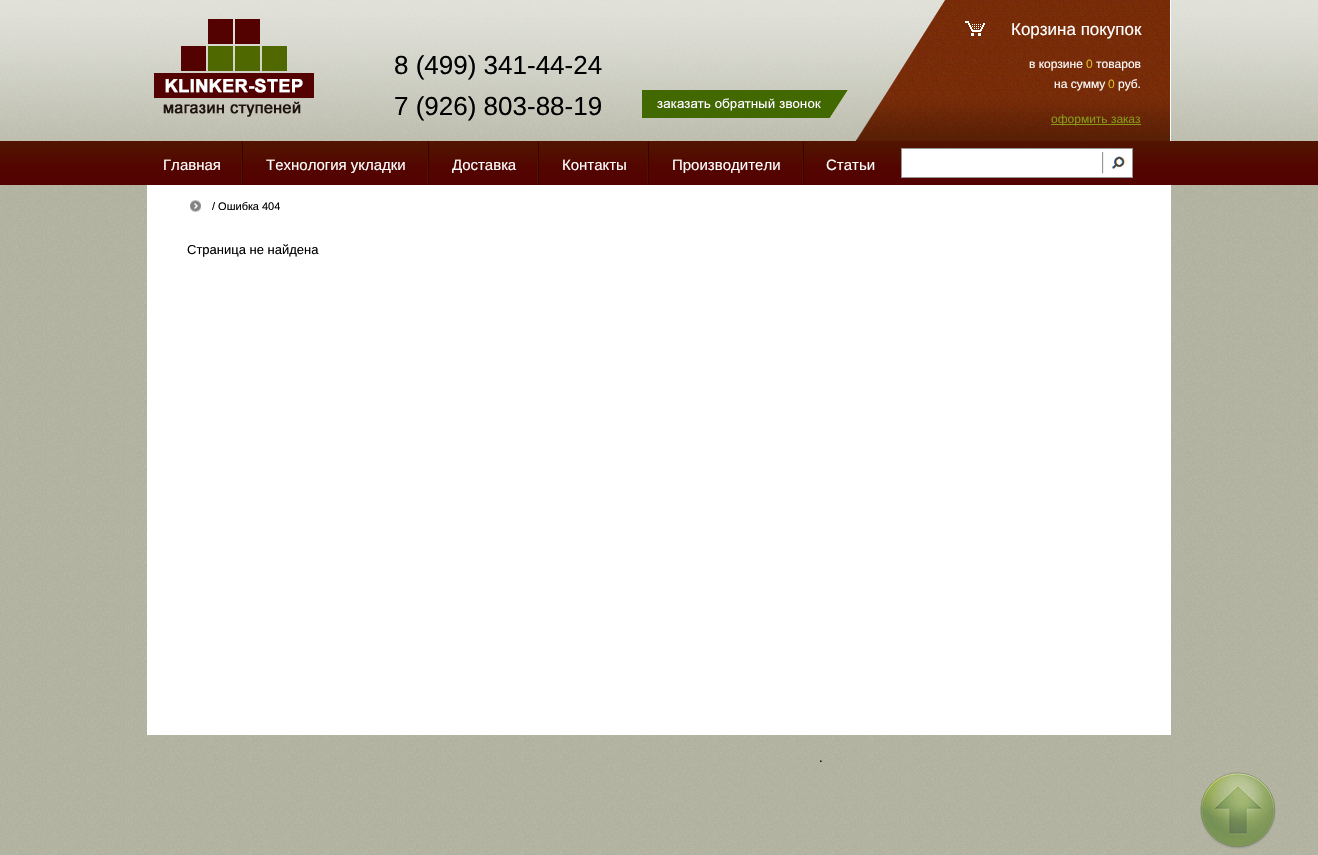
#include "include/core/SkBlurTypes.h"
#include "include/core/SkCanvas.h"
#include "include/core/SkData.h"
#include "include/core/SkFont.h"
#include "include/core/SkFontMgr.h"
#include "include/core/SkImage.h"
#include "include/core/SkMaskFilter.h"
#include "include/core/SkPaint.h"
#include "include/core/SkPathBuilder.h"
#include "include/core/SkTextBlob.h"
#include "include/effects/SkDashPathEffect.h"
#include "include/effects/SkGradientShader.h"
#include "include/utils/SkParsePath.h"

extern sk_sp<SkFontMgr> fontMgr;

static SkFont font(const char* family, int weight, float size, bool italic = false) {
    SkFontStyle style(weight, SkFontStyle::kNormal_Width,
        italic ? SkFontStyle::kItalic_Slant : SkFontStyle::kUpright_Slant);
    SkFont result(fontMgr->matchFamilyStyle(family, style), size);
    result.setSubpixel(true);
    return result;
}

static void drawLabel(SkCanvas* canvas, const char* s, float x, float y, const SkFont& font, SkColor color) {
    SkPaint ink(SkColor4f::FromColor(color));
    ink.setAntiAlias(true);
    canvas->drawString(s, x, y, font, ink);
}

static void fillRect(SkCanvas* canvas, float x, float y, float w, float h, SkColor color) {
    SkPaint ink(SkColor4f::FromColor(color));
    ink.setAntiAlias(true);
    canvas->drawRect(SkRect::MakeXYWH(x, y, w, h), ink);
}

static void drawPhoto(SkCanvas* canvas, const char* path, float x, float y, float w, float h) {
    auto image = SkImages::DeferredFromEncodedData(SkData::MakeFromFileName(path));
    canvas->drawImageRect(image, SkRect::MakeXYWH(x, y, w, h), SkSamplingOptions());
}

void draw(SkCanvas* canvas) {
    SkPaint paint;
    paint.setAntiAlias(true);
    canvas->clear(0xFFFFFFFF);
    drawPhoto(canvas, "assets/img1.png", 0, 0, 1318, 855);
    drawPhoto(canvas, "assets/img2.png", 0, 0, 1318, 185);
    drawPhoto(canvas, "assets/img3.png", 855, 0, 316, 141);
    drawPhoto(canvas, "assets/img4.png", 154, 19, 160, 98);
    SkFont font1 = font("Liberation Sans", 400, 26);
    drawLabel(canvas, "8 (499) 341-44-24", 394, 74, font1, 0xFF000000);
    drawLabel(canvas, "7 (926) 803-88-19", 394, 115, font1, 0xFF000000);
    drawPhoto(canvas, "assets/img5.png", 642, 90, 206, 28);
    SkFont font2 = font("Liberation Sans", 400, 17);
    drawLabel(canvas, "Корзина покупок", 1011, 35, font2, 0xFFFFFFFF);
    SkFont font3 = font("Liberation Sans", 400, 12);
    drawLabel(canvas, "в корзине", 1029, 68, font3, 0xFFFFFFFF);
    drawLabel(canvas, "0", 1086, 68, font3, 0xFFDDB928);
    drawLabel(canvas, "товаров", 1096, 68, font3, 0xFFFFFFFF);
    drawLabel(canvas, "на сумму", 1054, 88, font3, 0xFFFFFFFF);
    drawLabel(canvas, "0", 1108, 88, font3, 0xFFDDB928);
    drawLabel(canvas, "руб.", 1118, 88, font3, 0xFFFFFFFF);
    fillRect(canvas, 1051, 124, 90, 1, 0xFF879A18);
    drawLabel(canvas, "оформить заказ", 1051, 123, font3, 0xFF879A18);
    SkFont font4 = font("Liberation Sans", 400, 15);
    drawLabel(canvas, "Главная", 163, 170, font4, 0xFFFFFFFF);
    drawPhoto(canvas, "assets/img6.png", 241, 141, 2, 44);
    drawLabel(canvas, "Технология укладки", 266, 170, font4, 0xFFFFFFFF);
    drawPhoto(canvas, "assets/img6.png", 427, 141, 2, 44);
    drawLabel(canvas, "Доставка", 452, 170, font4, 0xFFFFFFFF);
    drawPhoto(canvas, "assets/img6.png", 537, 141, 2, 44);
    drawLabel(canvas, "Контакты", 562, 170, font4, 0xFFFFFFFF);
    drawPhoto(canvas, "assets/img6.png", 647, 141, 2, 44);
    drawLabel(canvas, "Производители", 672, 170, font4, 0xFFFFFFFF);
    drawPhoto(canvas, "assets/img6.png", 802, 141, 2, 44);
    drawLabel(canvas, "Статьи", 826, 170, font4, 0xFFFFFFFF);
    paint.setColor(0xFFFFFFFF);
    canvas->drawRect(SkRect::MakeXYWH(901.5f, 148.5f, 231, 29), paint);
    paint.setStroke(true);
    paint.setStrokeWidth(1);
    paint.setColor(0xFF969494);
    canvas->drawRect(SkRect::MakeXYWH(901.5f, 148.5f, 231, 29), paint);
    drawPhoto(canvas, "assets/img7.png", 1102, 152, 23, 22);
    fillRect(canvas, 147, 185, 1024, 550, 0xFFFFFFFF);
    drawPhoto(canvas, "assets/img8.png", 190, 200, 11, 12);
    SkFont font5 = font("Liberation Sans", 400, 11);
    drawLabel(canvas, "/ Ошибка 404", 212, 210, font5, 0xFF000000);
    SkFont font6 = font("Liberation Sans", 400, 13);
    drawLabel(canvas, "Страница не найдена", 187, 254, font6, 0xFF000000);
    drawLabel(canvas, ".", 819, 762, font6, 0xFF000000);
    drawPhoto(canvas, "assets/img9.png", 1200, 772, 76, 77);
}
